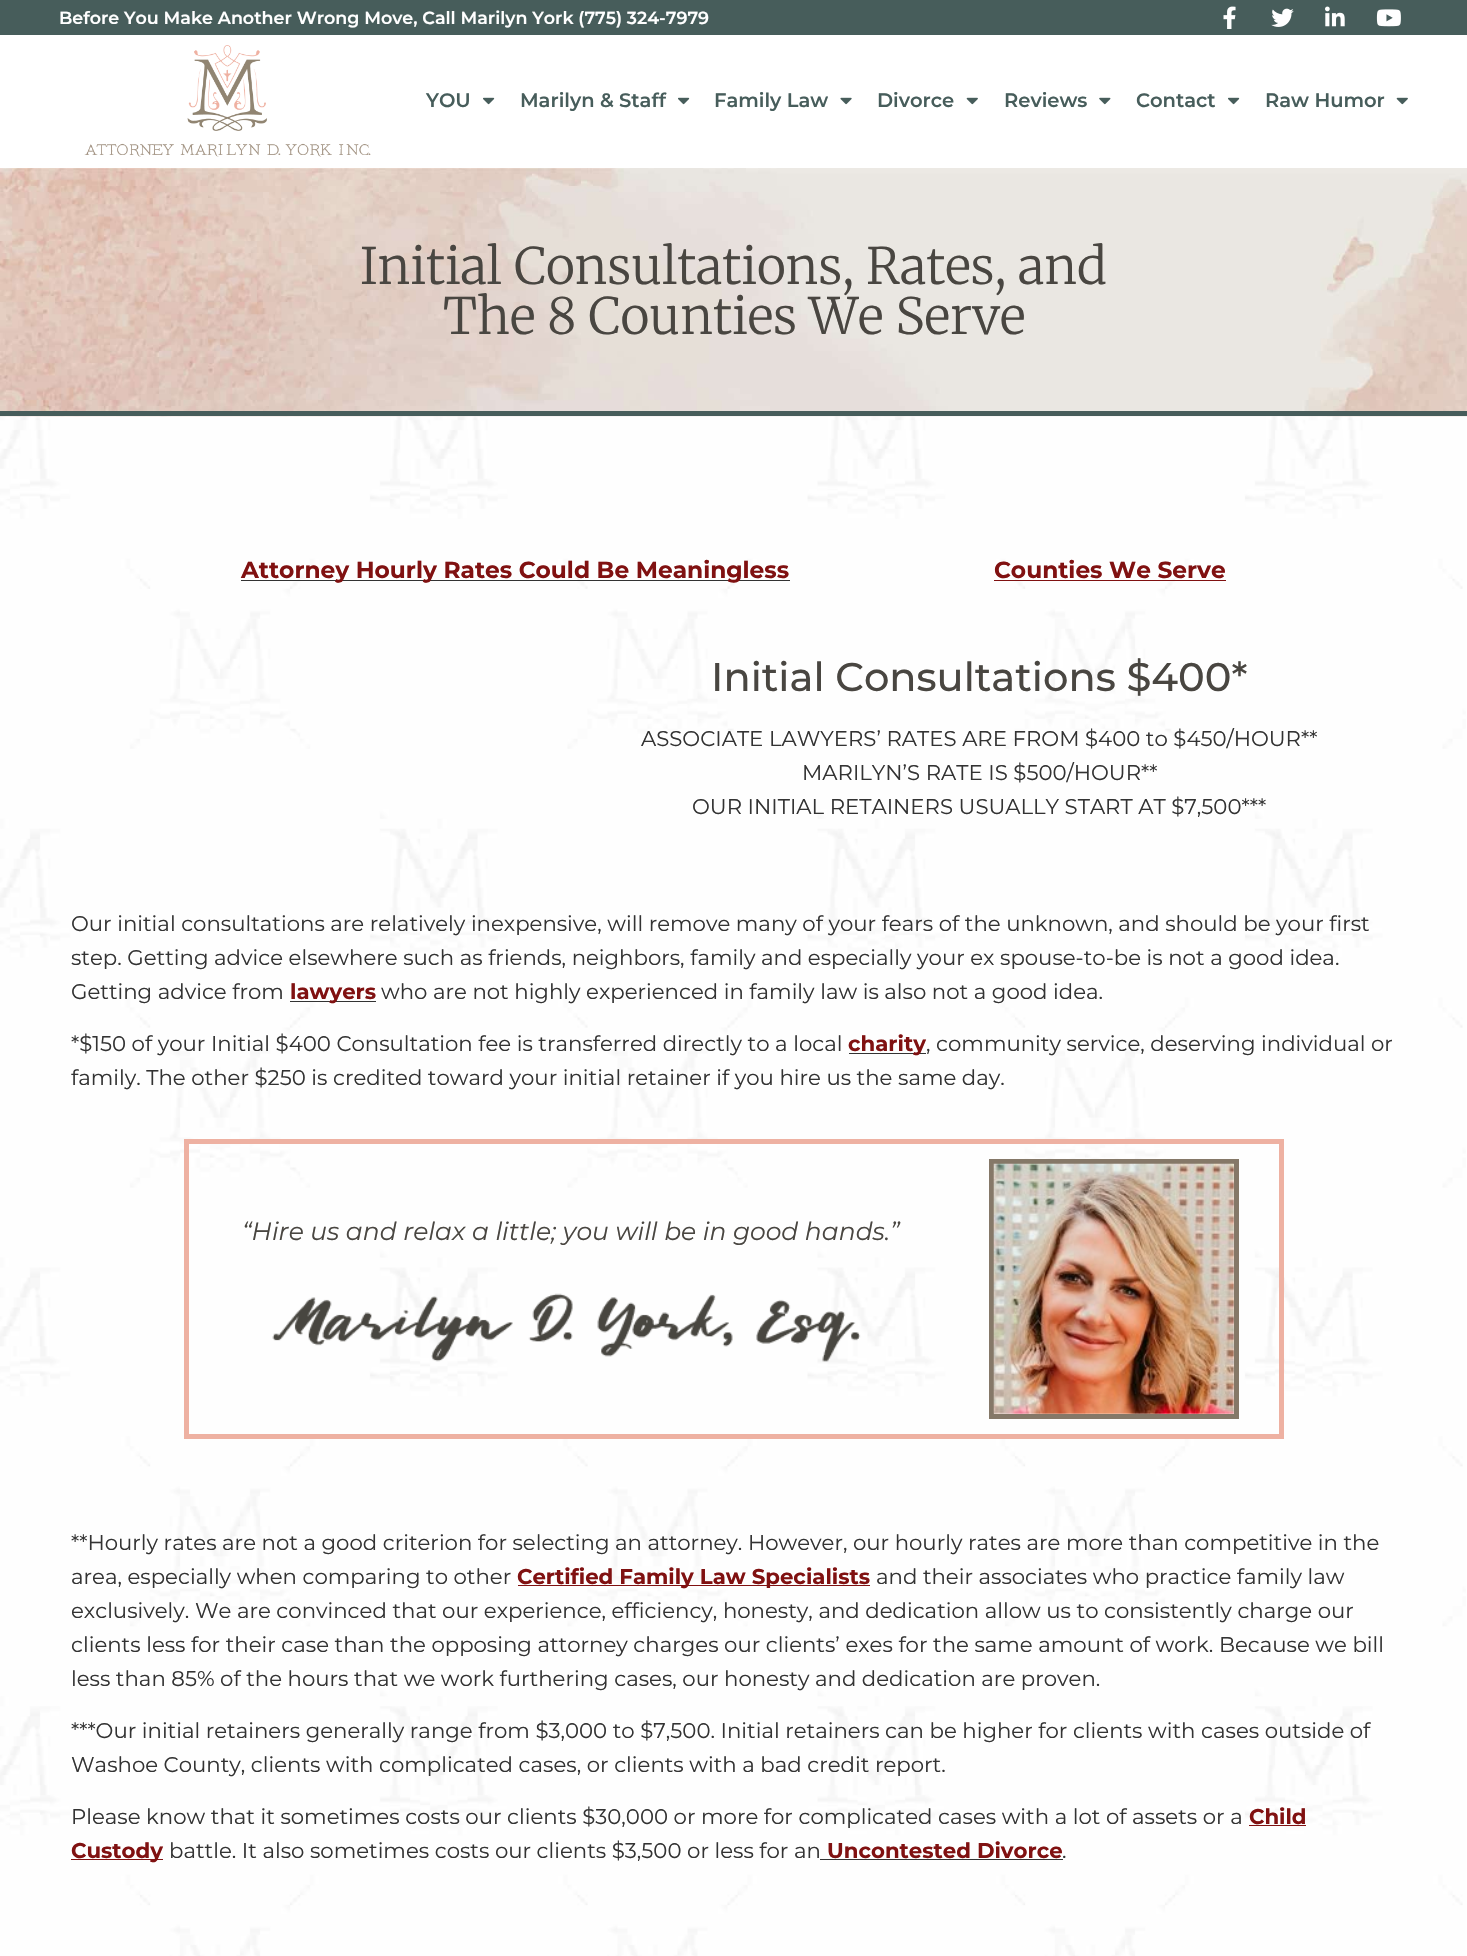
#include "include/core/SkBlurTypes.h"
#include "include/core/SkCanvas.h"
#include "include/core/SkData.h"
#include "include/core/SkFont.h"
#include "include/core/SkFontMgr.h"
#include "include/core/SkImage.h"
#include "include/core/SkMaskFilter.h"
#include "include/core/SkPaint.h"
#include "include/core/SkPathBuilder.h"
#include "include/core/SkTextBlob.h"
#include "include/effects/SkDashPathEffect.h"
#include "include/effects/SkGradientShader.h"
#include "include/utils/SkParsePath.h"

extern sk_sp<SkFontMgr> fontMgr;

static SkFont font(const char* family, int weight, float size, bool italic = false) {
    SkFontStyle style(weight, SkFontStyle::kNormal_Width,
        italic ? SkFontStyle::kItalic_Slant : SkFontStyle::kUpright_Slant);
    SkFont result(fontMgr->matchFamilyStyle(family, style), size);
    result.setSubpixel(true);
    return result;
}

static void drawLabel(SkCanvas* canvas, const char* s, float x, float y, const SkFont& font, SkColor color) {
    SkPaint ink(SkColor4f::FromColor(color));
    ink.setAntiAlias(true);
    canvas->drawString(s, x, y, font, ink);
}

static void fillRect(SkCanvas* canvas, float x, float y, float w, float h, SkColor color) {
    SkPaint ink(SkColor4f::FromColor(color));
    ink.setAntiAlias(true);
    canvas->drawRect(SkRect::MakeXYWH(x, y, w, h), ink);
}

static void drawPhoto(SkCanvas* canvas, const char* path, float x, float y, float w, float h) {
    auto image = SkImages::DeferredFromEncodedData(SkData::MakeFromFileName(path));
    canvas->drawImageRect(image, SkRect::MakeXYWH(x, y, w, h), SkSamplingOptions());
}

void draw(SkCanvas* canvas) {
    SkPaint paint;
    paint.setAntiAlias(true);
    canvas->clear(0xFFFFFFFF);
    drawPhoto(canvas, "assets/img1.png", 0, 416, 1466, 1540);
    fillRect(canvas, 0, 0, 1467, 35, 0xFF475D5B);
    SkFont font1 = font("Montserrat", 600, 17.5f);
    drawLabel(canvas, "Before You Make Another Wrong Move, Call Marilyn York (775) 324-7979", 59, 24, font1, 0xFFFFFFFF);
    drawPhoto(canvas, "assets/img2.png", 1223, 6, 13, 23);
    drawPhoto(canvas, "assets/img3.png", 1271, 8, 23, 19);
    drawPhoto(canvas, "assets/img4.png", 1325, 6, 20, 21);
    drawPhoto(canvas, "assets/img5.png", 1376, 9, 25, 18);
    drawPhoto(canvas, "assets/img6.png", 84, 45, 287, 112);
    SkFont font2 = font("Montserrat", 600, 19.5f);
    drawLabel(canvas, "YOU", 426, 107, font2, 0xFF475D5B);
    drawPhoto(canvas, "assets/img7.png", 483, 97, 12, 8);
    drawLabel(canvas, "Marilyn & Staff", 520, 107, font2, 0xFF475D5B);
    drawPhoto(canvas, "assets/img7.png", 678, 97, 12, 8);
    drawLabel(canvas, "Family Law", 714, 107, font2, 0xFF475D5B);
    drawPhoto(canvas, "assets/img8.png", 840, 97, 12, 8);
    drawLabel(canvas, "Divorce", 877, 107, font2, 0xFF475D5B);
    drawPhoto(canvas, "assets/img9.png", 966, 97, 12, 8);
    drawLabel(canvas, "Reviews", 1004, 107, font2, 0xFF475D5B);
    drawPhoto(canvas, "assets/img10.png", 1099, 97, 12, 8);
    drawLabel(canvas, "Contact", 1136, 107, font2, 0xFF475D5B);
    drawPhoto(canvas, "assets/img7.png", 1228, 97, 12, 8);
    drawLabel(canvas, "Raw Humor", 1265, 107, font2, 0xFF475D5B);
    drawPhoto(canvas, "assets/img9.png", 1396, 97, 12, 8);
    drawPhoto(canvas, "assets/img11.png", 0, 168, 1467, 249);
    fillRect(canvas, 0, 411, 1467, 5, 0xFF475D5B);
    SkFont font3 = font("Merriweather", 300, 50);
    drawLabel(canvas, "Initial Consultations, Rates, and", 360, 284, font3, 0xFF494641);
    drawLabel(canvas, "The 8 Counties We Serve", 443, 334, font3, 0xFF494641);
    fillRect(canvas, 241, 580, 549, 1, 0xFF333333);
    SkFont font4 = font("Montserrat", 700, 23.3f);
    drawLabel(canvas, "Attorney Hourly Rates Could Be Meaningless", 241, 578, font4, 0xFF801111);
    drawLabel(canvas, "Counties We Serve", 994, 578, font4, 0xFF801111);
    fillRect(canvas, 994, 580, 232, 1, 0xFF801111);
    SkFont font5 = font("Montserrat", 500, 40);
    drawLabel(canvas, "Initial Consultations $400*", 711, 691, font5, 0xFF494641);
    SkFont font6 = font("Montserrat", 400, 21.25f);
    drawLabel(canvas, "ASSOCIATE LAWYERS’ RATES ARE FROM $400 to $450/HOUR**", 641, 746, font6, 0xFF333333);
    drawLabel(canvas, "MARILYN’S RATE IS $500/HOUR**", 802, 780, font6, 0xFF333333);
    drawLabel(canvas, "OUR INITIAL RETAINERS USUALLY START AT $7,500***", 692, 814, font6, 0xFF333333);
    drawLabel(canvas, "Our initial consultations are relatively inexpensive, will remove many of your fears of the unknown, and should be your first", 71, 931, font6, 0xFF333333);
    drawLabel(canvas, "step. Getting advice elsewhere such as friends, neighbors, family and especially your ex spouse-to-be is not a good idea.", 71, 965, font6, 0xFF333333);
    drawLabel(canvas, "Getting advice from", 71, 999, font6, 0xFF333333);
    fillRect(canvas, 290, 1001, 86, 1, 0xFF333333);
    SkFont font7 = font("Montserrat", 700, 21.25f);
    drawLabel(canvas, "lawyers", 290, 999, font7, 0xFF801111);
    drawLabel(canvas, "who are not highly experienced in family law is also not a good idea.", 381, 999, font6, 0xFF333333);
    drawLabel(canvas, "*$150 of your Initial $400 Consultation fee is transferred directly to a local", 71, 1051, font6, 0xFF333333);
    fillRect(canvas, 849, 1053, 77, 1, 0xFF333333);
    drawLabel(canvas, "charity", 848, 1051, font7, 0xFF801111);
    drawLabel(canvas, ", community service, deserving individual or", 926, 1051, font6, 0xFF333333);
    drawLabel(canvas, "family. The other $250 is credited toward your initial retainer if you hire us the same day.", 71, 1085, font6, 0xFF333333);
    paint.setStroke(true);
    paint.setStrokeWidth(5);
    paint.setColor(0xFFEEB1A2);
    canvas->drawRect(SkRect::MakeXYWH(186.5f, 1141.5f, 1095, 295), paint);
    SkFont font8 = font("Montserrat", 400, 25, true);
    drawLabel(canvas, "“Hire us and relax a little; you will be in good hands.”", 242, 1240, font8, 0xFF494641);
    drawPhoto(canvas, "assets/img12.png", 272, 1293, 589, 69);
    paint.setColor(0xFF857868);
    canvas->drawRect(SkRect::MakeXYWH(991.5f, 1161.5f, 245, 255), paint);
    drawPhoto(canvas, "assets/img13.png", 993, 1163, 241, 251);
    drawLabel(canvas, "**Hourly rates are not a good criterion for selecting an attorney. However, our hourly rates are more than competitive in the", 71, 1550, font6, 0xFF333333);
    drawLabel(canvas, "area, especially when comparing to other", 71, 1584, font6, 0xFF333333);
    fillRect(canvas, 518, 1585, 352, 1, 0xFF801111);
    drawLabel(canvas, "Certified Family Law Specialists", 517, 1584, font7, 0xFF801111);
    drawLabel(canvas, "and their associates who practice family law", 876, 1584, font6, 0xFF333333);
    drawLabel(canvas, "exclusively. We are convinced that our experience, efficiency, honesty, and dedication allow us to consistently charge our", 71, 1618, font6, 0xFF333333);
    drawLabel(canvas, "clients less for their case than the opposing attorney charges our clients’ exes for the same amount of work. Because we bill", 71, 1652, font6, 0xFF333333);
    drawLabel(canvas, "less than 85% of the hours that we work furthering cases, our honesty and dedication are proven.", 71, 1686, font6, 0xFF333333);
    drawLabel(canvas, "***Our initial retainers generally range from $3,000 to $7,500. Initial retainers can be higher for clients with cases outside of", 71, 1738, font6, 0xFF333333);
    drawLabel(canvas, "Washoe County, clients with complicated cases, or clients with a bad credit report.", 71, 1772, font6, 0xFF333333);
    drawLabel(canvas, "Please know that it sometimes costs our clients $30,000 or more for complicated cases with a lot of assets or a", 71, 1824, font6, 0xFF333333);
    drawLabel(canvas, "Child", 1249, 1824, font7, 0xFF801111);
    fillRect(canvas, 1249, 1825, 57, 1, 0xFF801111);
    fillRect(canvas, 71, 1859, 92, 1, 0xFF801111);
    drawLabel(canvas, "Custody", 71, 1858, font7, 0xFF801111);
    drawLabel(canvas, "battle. It also sometimes costs our clients $3,500 or less for an", 169, 1858, font6, 0xFF333333);
    drawLabel(canvas, "Uncontested Divorce", 827, 1858, font7, 0xFF801111);
    drawLabel(canvas, ".", 1062, 1858, font6, 0xFF333333);
    fillRect(canvas, 820, 1859, 243, 1, 0xFF333333);
}
